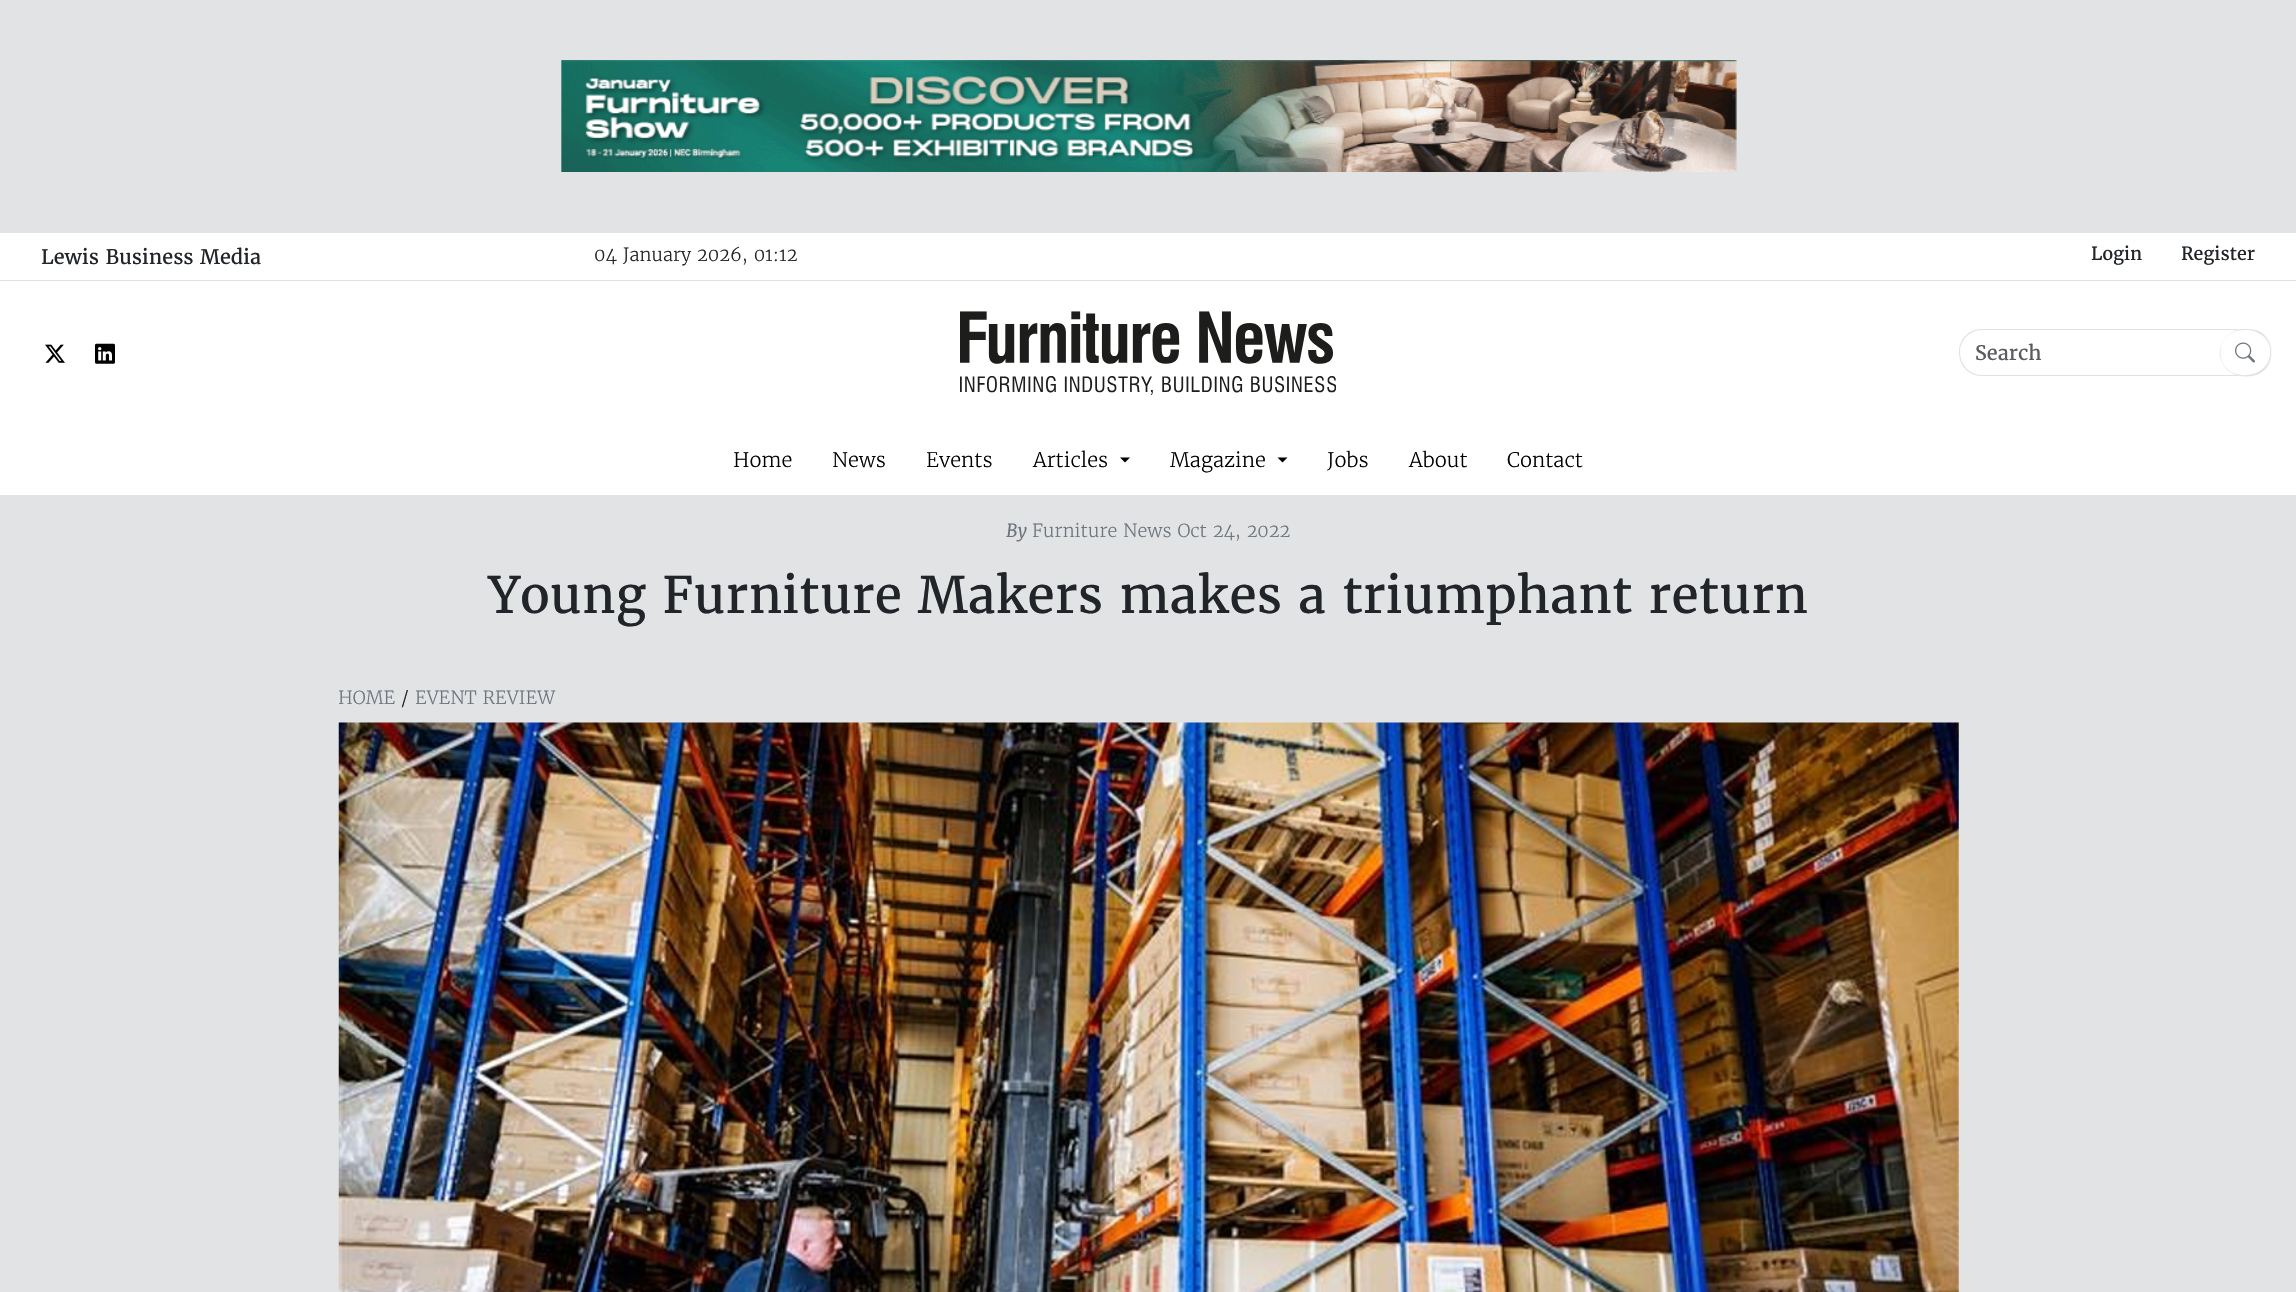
#include "include/core/SkBlurTypes.h"
#include "include/core/SkCanvas.h"
#include "include/core/SkData.h"
#include "include/core/SkFont.h"
#include "include/core/SkFontMgr.h"
#include "include/core/SkImage.h"
#include "include/core/SkMaskFilter.h"
#include "include/core/SkPaint.h"
#include "include/core/SkPathBuilder.h"
#include "include/core/SkTextBlob.h"
#include "include/effects/SkDashPathEffect.h"
#include "include/effects/SkGradientShader.h"
#include "include/utils/SkParsePath.h"

extern sk_sp<SkFontMgr> fontMgr;

static SkFont font(const char* family, int weight, float size, bool italic = false) {
    SkFontStyle style(weight, SkFontStyle::kNormal_Width,
        italic ? SkFontStyle::kItalic_Slant : SkFontStyle::kUpright_Slant);
    SkFont result(fontMgr->matchFamilyStyle(family, style), size);
    result.setSubpixel(true);
    return result;
}

static void drawLabel(SkCanvas* canvas, const char* s, float x, float y, const SkFont& font, SkColor color) {
    SkPaint ink(SkColor4f::FromColor(color));
    ink.setAntiAlias(true);
    canvas->drawString(s, x, y, font, ink);
}

static void fillRect(SkCanvas* canvas, float x, float y, float w, float h, SkColor color) {
    SkPaint ink(SkColor4f::FromColor(color));
    ink.setAntiAlias(true);
    canvas->drawRect(SkRect::MakeXYWH(x, y, w, h), ink);
}

static void fillRRect(SkCanvas* canvas, float x, float y, float w, float h, float radius, SkColor color) {
    SkPaint ink(SkColor4f::FromColor(color));
    ink.setAntiAlias(true);
    canvas->drawRoundRect(SkRect::MakeXYWH(x, y, w, h), radius, radius, ink);
}

static void drawPhoto(SkCanvas* canvas, const char* path, float x, float y, float w, float h) {
    auto image = SkImages::DeferredFromEncodedData(SkData::MakeFromFileName(path));
    canvas->drawImageRect(image, SkRect::MakeXYWH(x, y, w, h), SkSamplingOptions());
}

static SkPath parsePath(const char* data, bool evenOdd = false) {
    SkPath result = *SkParsePath::FromSVGString(data);
    if (evenOdd) result.setFillType(SkPathFillType::kEvenOdd);
    return result;
}

void draw(SkCanvas* canvas) {
    SkPaint paint;
    paint.setAntiAlias(true);
    canvas->clear(0xFFE2E3E5);
    drawPhoto(canvas, "assets/img1.png", 561, 60, 1176, 112);
    fillRect(canvas, 0, 233, 2296, 262, 0xFFFFFFFF);
    fillRect(canvas, 0, 280, 2296, 1, 0xFFDEE2E6);
    SkFont font1 = font("Merriweather", 400, 20);
    drawLabel(canvas, "Lewis Business Media", 41, 264, font1, 0xFF212529);
    SkFont font2 = font("Merriweather", 300, 18);
    drawLabel(canvas, "04 January 2026, 01:12", 594, 261, font2, 0xFF212529);
    SkFont font3 = font("Merriweather", 400, 18);
    drawLabel(canvas, "Login", 2091, 260, font3, 0xFF212529);
    drawLabel(canvas, "Register", 2181, 260, font3, 0xFF212529);
    drawPhoto(canvas, "assets/img2.png", 45, 344, 20, 19);
    drawPhoto(canvas, "assets/img3.png", 95, 343, 20, 21);
    drawPhoto(canvas, "assets/img4.png", 960, 311, 376, 84);
    paint.setColor(0xFFDEE2E6);
    canvas->drawPath(parsePath("M1982 329H2249C2262 329 2272 339 2272 352C2272 366 2262 376 2249 376H1982C1969 376 1959 366 1959 352C1959 339 1969 329 1982 329ZM1982 330H2249C2262 330 2272 340 2272 352C2272 365 2262 375 2249 375H1982C1970 375 1960 365 1960 352C1960 340 1970 330 1982 330Z", true), paint);
    drawLabel(canvas, "Search", 1975, 360, font1, 0xFF595C5F);
    fillRRect(canvas, 2220, 329, 51, 47, 23.5f, 0xFFFFFFFF);
    canvas->drawPath(parsePath("M2244 329C2253 329 2262 331 2267 339C2271 344 2272 351 2271 357C2266 383 2226 383 2220 357C2218 343 2229 329 2244 329ZM2244 330C2248 330 2252 330 2256 332C2279 341 2273 373 2248 375C2212 378 2212 330 2244 330Z", true), paint);
    drawPhoto(canvas, "assets/img5.png", 2235, 342, 20, 21);
    SkFont font4 = font("Merriweather", 300, 20);
    drawLabel(canvas, "Home", 733, 467, font4, 0xFF000000);
    drawLabel(canvas, "News", 832, 467, font4, 0xFF000000);
    drawLabel(canvas, "Events", 926, 467, font4, 0xFF000000);
    drawLabel(canvas, "Articles", 1033, 467, font4, 0xFF000000);
    paint.setColor(0xFF000000);
    canvas->drawPath(parsePath("M1120 457.5H1130L1125 462.5Z"), paint);
    drawLabel(canvas, "Magazine", 1170, 467, font4, 0xFF000000);
    canvas->drawPath(parsePath("M1277.5 457.5H1287.5L1282.5 462.5Z"), paint);
    drawLabel(canvas, "Jobs", 1327, 467, font4, 0xFF000000);
    drawLabel(canvas, "About", 1409, 467, font4, 0xFF000000);
    drawLabel(canvas, "Contact", 1507, 467, font4, 0xFF000000);
    SkFont font5 = font("Merriweather", 400, 18, true);
    drawLabel(canvas, "By", 1006, 537, font5, 0xFF6C757D);
    drawLabel(canvas, "Furniture News Oct 24, 2022", 1032, 537, font2, 0xFF6C757D);
    SkFont font6 = font("Merriweather", 400, 50);
    drawLabel(canvas, "Young Furniture Makers makes a triumphant return", 488, 613, font6, 0xFF212529);
    drawLabel(canvas, "HOME", 338, 704, font2, 0xFF6C757D);
    drawLabel(canvas, "/", 401, 704, font2, 0xFF212529);
    drawLabel(canvas, "EVENT REVIEW", 415, 704, font2, 0xFF6C757D);
    drawPhoto(canvas, "assets/img6.png", 338, 722, 1621, 570);
}
